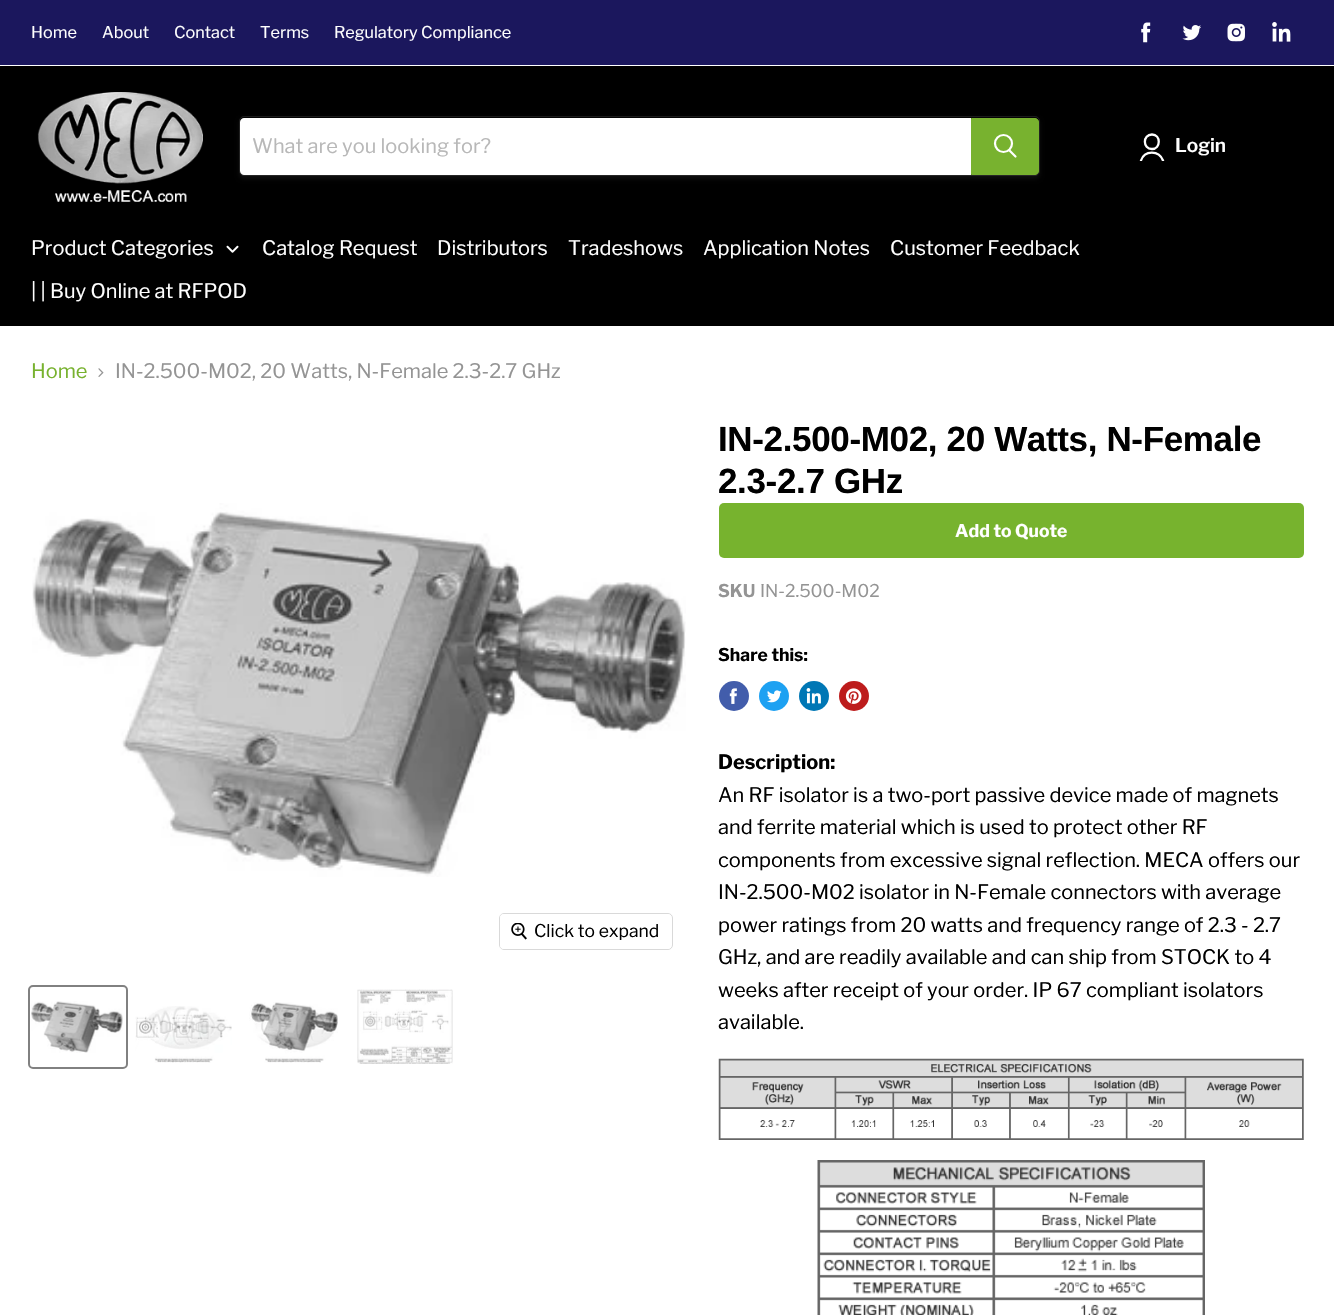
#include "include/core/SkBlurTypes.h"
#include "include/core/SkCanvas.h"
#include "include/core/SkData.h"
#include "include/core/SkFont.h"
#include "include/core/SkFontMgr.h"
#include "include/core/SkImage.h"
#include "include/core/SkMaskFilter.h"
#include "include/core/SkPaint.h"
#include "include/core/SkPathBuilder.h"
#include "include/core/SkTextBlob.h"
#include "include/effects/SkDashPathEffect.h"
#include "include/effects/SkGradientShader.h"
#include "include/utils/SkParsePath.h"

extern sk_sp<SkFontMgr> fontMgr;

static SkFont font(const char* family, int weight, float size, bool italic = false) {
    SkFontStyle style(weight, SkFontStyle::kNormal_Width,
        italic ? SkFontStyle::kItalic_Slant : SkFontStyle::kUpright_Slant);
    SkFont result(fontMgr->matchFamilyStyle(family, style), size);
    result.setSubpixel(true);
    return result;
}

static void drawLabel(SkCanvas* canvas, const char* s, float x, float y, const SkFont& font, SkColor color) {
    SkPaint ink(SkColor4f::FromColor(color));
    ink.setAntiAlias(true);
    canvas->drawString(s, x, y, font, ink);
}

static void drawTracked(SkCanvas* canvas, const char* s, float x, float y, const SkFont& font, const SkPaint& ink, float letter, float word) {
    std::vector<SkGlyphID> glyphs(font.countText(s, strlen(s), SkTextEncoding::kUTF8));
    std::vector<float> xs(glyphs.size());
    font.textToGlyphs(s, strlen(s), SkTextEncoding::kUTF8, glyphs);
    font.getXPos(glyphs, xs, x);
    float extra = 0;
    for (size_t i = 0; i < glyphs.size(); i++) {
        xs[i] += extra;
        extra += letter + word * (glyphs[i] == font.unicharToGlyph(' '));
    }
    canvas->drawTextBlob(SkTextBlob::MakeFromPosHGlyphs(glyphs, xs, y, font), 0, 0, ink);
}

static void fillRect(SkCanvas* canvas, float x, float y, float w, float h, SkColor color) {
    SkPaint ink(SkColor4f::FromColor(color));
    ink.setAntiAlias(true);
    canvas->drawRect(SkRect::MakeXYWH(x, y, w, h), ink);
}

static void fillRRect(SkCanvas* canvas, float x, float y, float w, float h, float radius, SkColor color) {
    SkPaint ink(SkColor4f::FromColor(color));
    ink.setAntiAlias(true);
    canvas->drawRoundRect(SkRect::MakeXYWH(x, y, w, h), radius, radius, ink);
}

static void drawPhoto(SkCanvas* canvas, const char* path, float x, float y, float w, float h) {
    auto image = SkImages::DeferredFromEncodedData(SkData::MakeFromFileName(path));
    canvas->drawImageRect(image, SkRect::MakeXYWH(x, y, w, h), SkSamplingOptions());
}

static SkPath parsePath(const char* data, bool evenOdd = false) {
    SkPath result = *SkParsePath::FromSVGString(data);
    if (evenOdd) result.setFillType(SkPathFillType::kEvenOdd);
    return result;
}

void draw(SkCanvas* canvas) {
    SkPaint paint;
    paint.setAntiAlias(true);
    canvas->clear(0xFFFFFFFF);
    fillRect(canvas, 0, 0, 1334, 65, 0xFF1B175D);
    SkFont font1 = font("Libre Franklin", 400, 16.25f);
    drawLabel(canvas, "Home", 31, 38, font1, 0xFFFFFFFF);
    drawLabel(canvas, "About", 102, 38, font1, 0xFFFFFFFF);
    drawLabel(canvas, "Contact", 174, 38, font1, 0xFFFFFFFF);
    drawLabel(canvas, "Terms", 260, 38, font1, 0xFFFFFFFF);
    drawLabel(canvas, "Regulatory Compliance", 334, 38, font1, 0xFFFFFFFF);
    drawPhoto(canvas, "assets/img1.png", 1141, 22, 10, 21);
    drawPhoto(canvas, "assets/img2.png", 1182, 25, 19, 16);
    drawPhoto(canvas, "assets/img3.png", 1227, 23, 18, 19);
    drawPhoto(canvas, "assets/img4.png", 1272, 22, 19, 20);
    fillRect(canvas, 0, 66, 1334, 260, 0xFF000000);
    drawPhoto(canvas, "assets/img5.png", 37, 92, 166, 110);
    paint.setColor(0x1C808080);
    paint.setMaskFilter(SkMaskFilter::MakeBlur(kNormal_SkBlurStyle, 2));
    canvas->drawRoundRect(SkRect::MakeXYWH(239, 119, 801, 60), 5, 5, paint);
    paint.setMaskFilter(nullptr);
    paint.setStroke(true);
    paint.setStrokeWidth(1);
    paint.setColor(0x33808080);
    canvas->drawRoundRect(SkRect::MakeXYWH(239.5f, 116.5f, 800, 59), 4.5f, 4.5f, paint);
    paint.setStroke(false);
    paint.setColor(0xFFFFFFFF);
    canvas->drawPath(parsePath("M244 118H971V175H244C242 175 240 173 240 171V122C240 120 242 118 244 118Z"), paint);
    SkFont font2 = font("Libre Franklin", 400, 20);
    drawLabel(canvas, "What are you looking for?", 252, 153, font2, 0xFFB8B8B8);
    paint.setColor(0xFF78B22F);
    canvas->drawPath(parsePath("M971.5 118.5H1035C1037 118.5 1038.5 120 1038.5 122V171C1038.5 173 1037 174.5 1035 174.5H971.5Z"), paint);
    paint.setStroke(true);
    canvas->drawPath(parsePath("M971.5 118.5H1035C1037 118.5 1038.5 120 1038.5 122V171C1038.5 173 1037 174.5 1035 174.5H971.5Z"), paint);
    paint.setStrokeWidth(2.2f);
    paint.setStrokeCap(SkPaint::kRound_Cap);
    paint.setColor(0xFFFFFFFF);
    canvas->drawPath(parsePath("M1015.5 156.5L1009.5 150.5"), paint);
    paint.setStrokeCap(SkPaint::kButt_Cap);
    canvas->drawCircle(1003.5f, 143.5f, 8.5f, paint);
    paint.setStrokeWidth(2.3f);
    paint.setStrokeCap(SkPaint::kRound_Cap);
    paint.setStrokeJoin(SkPaint::kRound_Join);
    canvas->drawPath(parsePath("M1152 149C1161 149 1161 134.5 1152 134.5C1142.5 134.5 1142.5 149 1152 149Z"), paint);
    canvas->save();
    canvas->clipRect(SkRect::MakeXYWH(1139, 133, 26, 28));
    canvas->drawPath(parsePath("M1163 160.5C1159 150 1144.5 150 1141 160.5"), paint);
    canvas->restore();
    SkFont font3 = font("Libre Franklin", 600, 19);
    drawLabel(canvas, "Login", 1175, 152, font3, 0xFFFFFFFF);
    drawLabel(canvas, "Product Categories", 31, 255, font2, 0xFFFFFFFF);
    drawPhoto(canvas, "assets/img6.png", 226, 245, 13, 8);
    drawLabel(canvas, "Catalog Request", 262, 255, font2, 0xFFFFFFFF);
    drawLabel(canvas, "Distributors", 437, 255, font2, 0xFFFFFFFF);
    drawLabel(canvas, "Tradeshows", 568, 255, font2, 0xFFFFFFFF);
    drawLabel(canvas, "Application Notes", 703, 255, font2, 0xFFFFFFFF);
    drawLabel(canvas, "Customer Feedback", 890, 255, font2, 0xFFFFFFFF);
    drawLabel(canvas, "| | Buy Online at RFPOD", 31, 298, font2, 0xFFFFFFFF);
    drawLabel(canvas, "Home", 31, 378, font2, 0xFF78B22F);
    drawPhoto(canvas, "assets/img7.png", 98, 368, 6, 9);
    drawLabel(canvas, "IN-2.500-M02, 20 Watts, N-Female 2.3-2.7 GHz", 115, 378, font2, 0xFF949494);
    drawPhoto(canvas, "assets/img8.png", 32, 503, 654, 374);
    paint.setStrokeWidth(1);
    paint.setStrokeCap(SkPaint::kButt_Cap);
    paint.setStrokeJoin(SkPaint::kMiter_Join);
    paint.setColor(0xFFD9D9D9);
    canvas->drawRoundRect(SkRect::MakeXYWH(499.5f, 913.5f, 173, 36), 4.5f, 4.5f, paint);
    fillRRect(canvas, 500, 914, 171, 35, 4, 0xE6FFFFFF);
    drawPhoto(canvas, "assets/img9.png", 511, 923, 16, 17);
    SkFont font4 = font("Libre Franklin", 400, 17.5f);
    drawLabel(canvas, "Click to expand", 534, 937, font4, 0xFF000000);
    paint.setStrokeWidth(2);
    paint.setColor(0xFF818181);
    canvas->drawRoundRect(SkRect::MakeXYWH(29, 986, 98, 82), 4, 4, paint);
    drawPhoto(canvas, "assets/img10.png", 31, 1001, 92, 52);
    drawPhoto(canvas, "assets/img11.png", 135, 1006, 97, 57);
    drawPhoto(canvas, "assets/img12.png", 249, 1002, 89, 61);
    drawPhoto(canvas, "assets/img13.png", 357, 989, 96, 75);
    SkFont font5 = font("Arimo", 700, 35);
    paint.setStroke(false);
    paint.setColor(0xFF000000);
    drawTracked(canvas, "IN-2.500-M02, 20 Watts, N-Female", 718, 451, font5, paint, -0.35f, 0);
    drawTracked(canvas, "2.3-2.7 GHz", 718, 493, font5, paint, -0.35f, 0);
    fillRRect(canvas, 719, 503, 585, 55, 5, 0xFF77B32E);
    SkFont font6 = font("Libre Franklin", 700, 17.5f);
    drawLabel(canvas, "Add to Quote", 955, 537, font6, 0xFFFFFFFF);
    drawLabel(canvas, "SKU", 718, 597, font6, 0xFF949494);
    drawLabel(canvas, "IN-2.500-M02", 760, 597, font4, 0xFF949494);
    drawLabel(canvas, "Share this:", 718, 661, font6, 0xFF000000);
    paint.setColor(0xFF425DAB);
    canvas->drawCircle(734, 696, 15, paint);
    drawPhoto(canvas, "assets/img14.png", 729, 688, 8, 16);
    paint.setColor(0xFF1DA1F2);
    canvas->drawCircle(774, 696, 15, paint);
    drawPhoto(canvas, "assets/img15.png", 767, 690, 15, 13);
    paint.setColor(0xFF0077B5);
    canvas->drawCircle(814, 696, 15, paint);
    drawPhoto(canvas, "assets/img16.png", 806, 688, 15, 16);
    paint.setColor(0xFFBD1C1C);
    canvas->drawCircle(854, 696, 15, paint);
    drawPhoto(canvas, "assets/img17.png", 845, 688, 17, 16);
    SkFont font7 = font("Libre Franklin", 700, 20);
    drawLabel(canvas, "Description:", 718, 769, font7, 0xFF000000);
    drawLabel(canvas, "An RF isolator is a two-port passive device made of magnets", 718, 802, font2, 0xFF000000);
    drawLabel(canvas, "and ferrite material which is used to protect other RF", 718, 834, font2, 0xFF000000);
    drawLabel(canvas, "components from excessive signal reflection. MECA offers our", 718, 867, font2, 0xFF000000);
    drawLabel(canvas, "IN-2.500-M02 isolator in N-Female connectors with average", 718, 899, font2, 0xFF000000);
    drawLabel(canvas, "power ratings from 20 watts and frequency range of 2.3 - 2.7", 718, 932, font2, 0xFF000000);
    drawLabel(canvas, "GHz, and are readily available and can ship from STOCK to 4", 718, 964, font2, 0xFF000000);
    drawLabel(canvas, "weeks after receipt of your order. IP 67 compliant isolators", 718, 997, font2, 0xFF000000);
    drawLabel(canvas, "available.", 718, 1029, font2, 0xFF000000);
    drawPhoto(canvas, "assets/img18.png", 718, 1058, 586, 82);
    drawPhoto(canvas, "assets/img19.png", 817, 1160, 388, 155);
}
